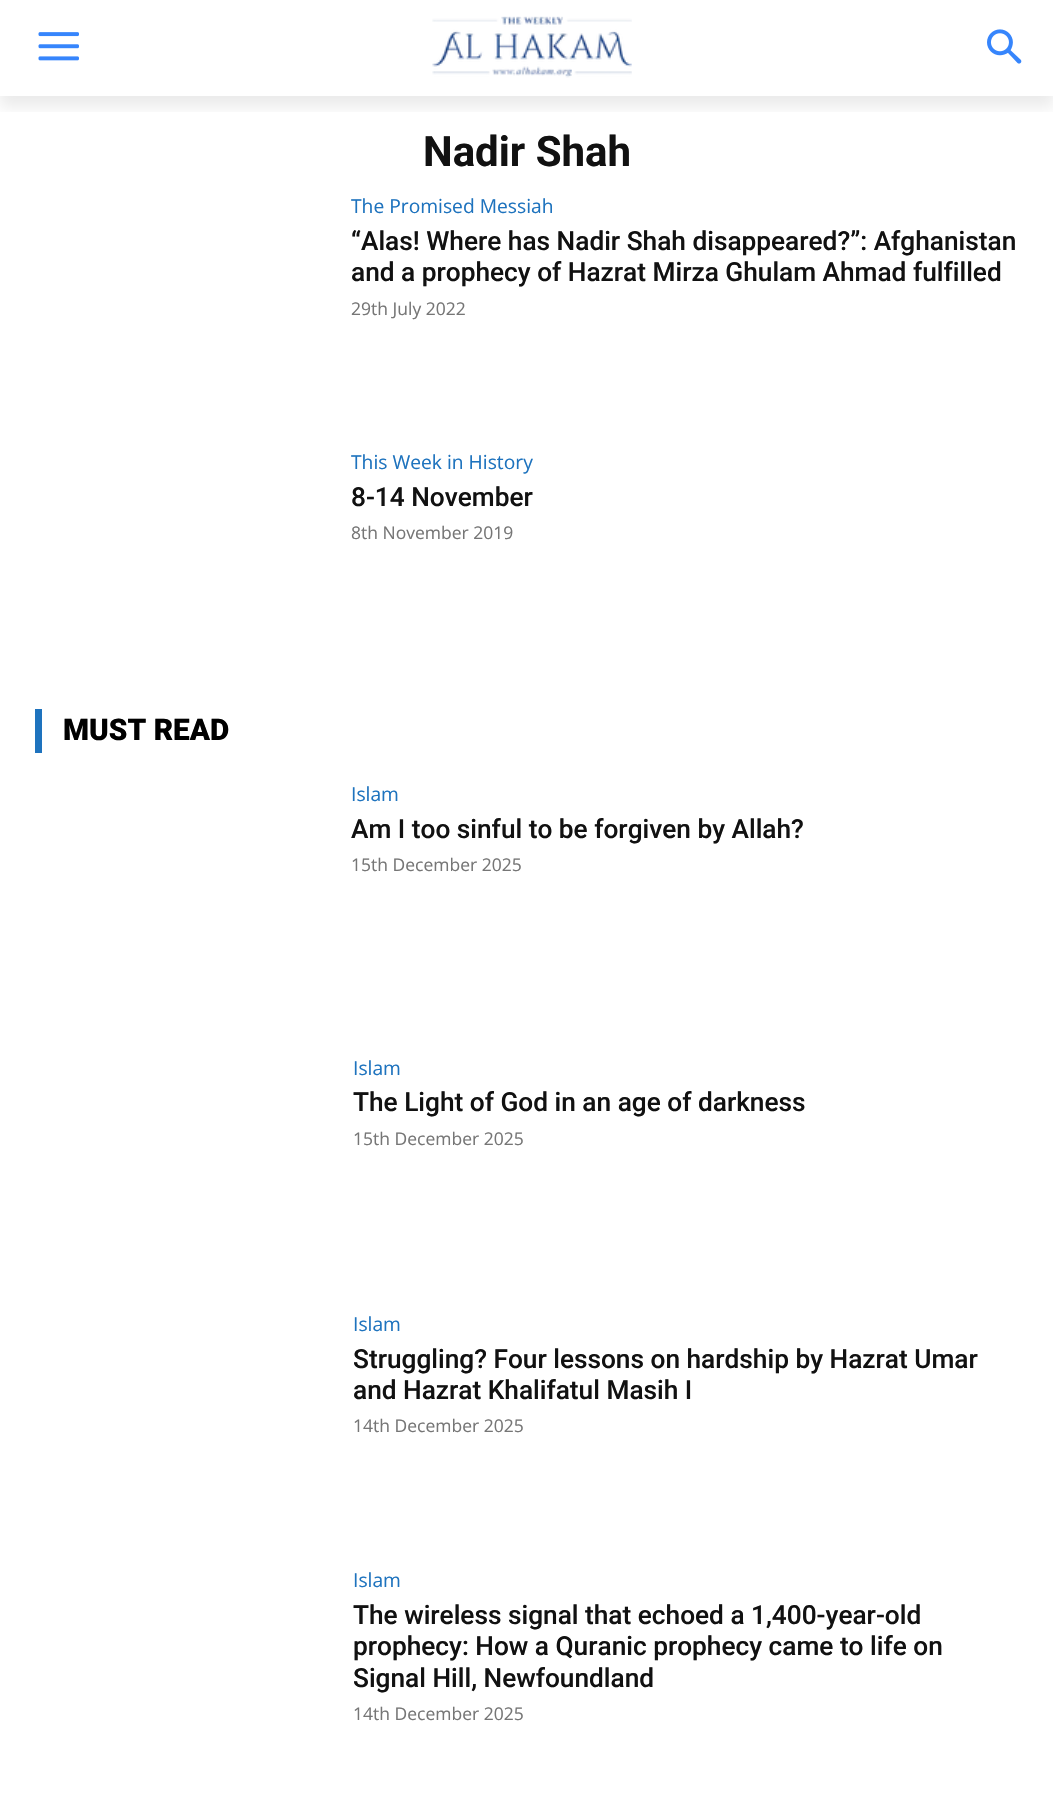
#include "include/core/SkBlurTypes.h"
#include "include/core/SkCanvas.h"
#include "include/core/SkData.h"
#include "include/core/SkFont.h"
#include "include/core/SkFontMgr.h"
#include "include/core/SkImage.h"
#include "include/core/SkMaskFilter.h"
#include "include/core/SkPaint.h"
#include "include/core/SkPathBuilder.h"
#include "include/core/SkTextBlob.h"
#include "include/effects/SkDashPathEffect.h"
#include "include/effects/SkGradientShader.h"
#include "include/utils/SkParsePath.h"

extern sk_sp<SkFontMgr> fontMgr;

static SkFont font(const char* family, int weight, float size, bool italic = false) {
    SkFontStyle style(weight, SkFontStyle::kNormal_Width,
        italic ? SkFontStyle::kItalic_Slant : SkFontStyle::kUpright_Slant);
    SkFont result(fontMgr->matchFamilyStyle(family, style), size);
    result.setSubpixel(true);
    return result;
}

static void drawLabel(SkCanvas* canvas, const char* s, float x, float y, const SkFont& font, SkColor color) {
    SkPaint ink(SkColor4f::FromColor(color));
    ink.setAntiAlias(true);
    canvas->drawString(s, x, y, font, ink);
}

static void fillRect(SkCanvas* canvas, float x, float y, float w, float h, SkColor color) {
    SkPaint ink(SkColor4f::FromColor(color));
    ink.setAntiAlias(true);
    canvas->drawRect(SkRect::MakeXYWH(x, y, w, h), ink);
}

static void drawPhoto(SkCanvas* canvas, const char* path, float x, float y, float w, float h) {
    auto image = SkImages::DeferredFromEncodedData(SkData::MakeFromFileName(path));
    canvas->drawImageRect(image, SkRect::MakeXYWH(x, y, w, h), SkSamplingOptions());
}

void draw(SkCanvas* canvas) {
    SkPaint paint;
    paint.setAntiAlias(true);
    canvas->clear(0xFFFFFFFF);
    drawPhoto(canvas, "assets/img1.png", 38, 32, 41, 29);
    drawPhoto(canvas, "assets/img2.png", 432, 16, 200, 62);
    drawPhoto(canvas, "assets/img3.png", 987, 29, 35, 35);
    canvas->save();
    canvas->clipRect(SkRect::MakeXYWH(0, 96, 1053, 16));
    paint.setColor(0x14000000);
    paint.setMaskFilter(SkMaskFilter::MakeBlur(kNormal_SkBlurStyle, 7));
    canvas->drawRect(SkRect::MakeXYWH(0, 11, 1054, 96), paint);
    paint.setMaskFilter(nullptr);
    canvas->restore();
    SkFont font1 = font("Roboto", 700, 42);
    drawLabel(canvas, "Nadir Shah", 423, 166, font1, 0xFF111111);
    SkFont font2 = font("Open Sans", 400, 19.25f);
    drawLabel(canvas, "The Promised Messiah", 351, 213, font2, 0xFF1E73BE);
    SkFont font3 = font("Roboto", 500, 26.25f);
    drawLabel(canvas, "“Alas! Where has Nadir Shah disappeared?”: Afghanistan", 351, 250, font3, 0xFF111111);
    drawLabel(canvas, "and a prophecy of Hazrat Mirza Ghulam Ahmad fulfilled", 351, 281, font3, 0xFF111111);
    SkFont font4 = font("Open Sans", 400, 17.5f);
    drawLabel(canvas, "29th July 2022", 351, 315, font4, 0xFF767676);
    drawLabel(canvas, "This Week in History", 351, 469, font2, 0xFF1E73BE);
    drawLabel(canvas, "8-14 November", 351, 506, font3, 0xFF111111);
    drawLabel(canvas, "8th November 2019", 351, 539, font4, 0xFF767676);
    fillRect(canvas, 35, 709, 7, 44, 0xFF1E73BE);
    SkFont font5 = font("Roboto", 900, 29.75f);
    drawLabel(canvas, "MUST READ", 63, 740, font5, 0xFF000000);
    drawLabel(canvas, "Islam", 351, 801, font2, 0xFF1E73BE);
    drawLabel(canvas, "Am I too sinful to be forgiven by Allah?", 351, 838, font3, 0xFF111111);
    drawLabel(canvas, "15th December 2025", 351, 871, font4, 0xFF767676);
    drawLabel(canvas, "Islam", 353, 1075, font2, 0xFF1E73BE);
    drawLabel(canvas, "The Light of God in an age of darkness", 353, 1111, font3, 0xFF111111);
    drawLabel(canvas, "15th December 2025", 353, 1145, font4, 0xFF767676);
    drawLabel(canvas, "Islam", 353, 1331, font2, 0xFF1E73BE);
    drawLabel(canvas, "Struggling? Four lessons on hardship by Hazrat Umar", 353, 1368, font3, 0xFF111111);
    drawLabel(canvas, "and Hazrat Khalifatul Masih I", 353, 1399, font3, 0xFF111111);
    drawLabel(canvas, "14th December 2025", 353, 1432, font4, 0xFF767676);
    drawLabel(canvas, "Islam", 353, 1587, font2, 0xFF1E73BE);
    drawLabel(canvas, "The wireless signal that echoed a 1,400-year-old", 353, 1624, font3, 0xFF111111);
    drawLabel(canvas, "prophecy: How a Quranic prophecy came to life on", 353, 1655, font3, 0xFF111111);
    drawLabel(canvas, "Signal Hill, Newfoundland", 353, 1687, font3, 0xFF111111);
    drawLabel(canvas, "14th December 2025", 353, 1720, font4, 0xFF767676);
}
